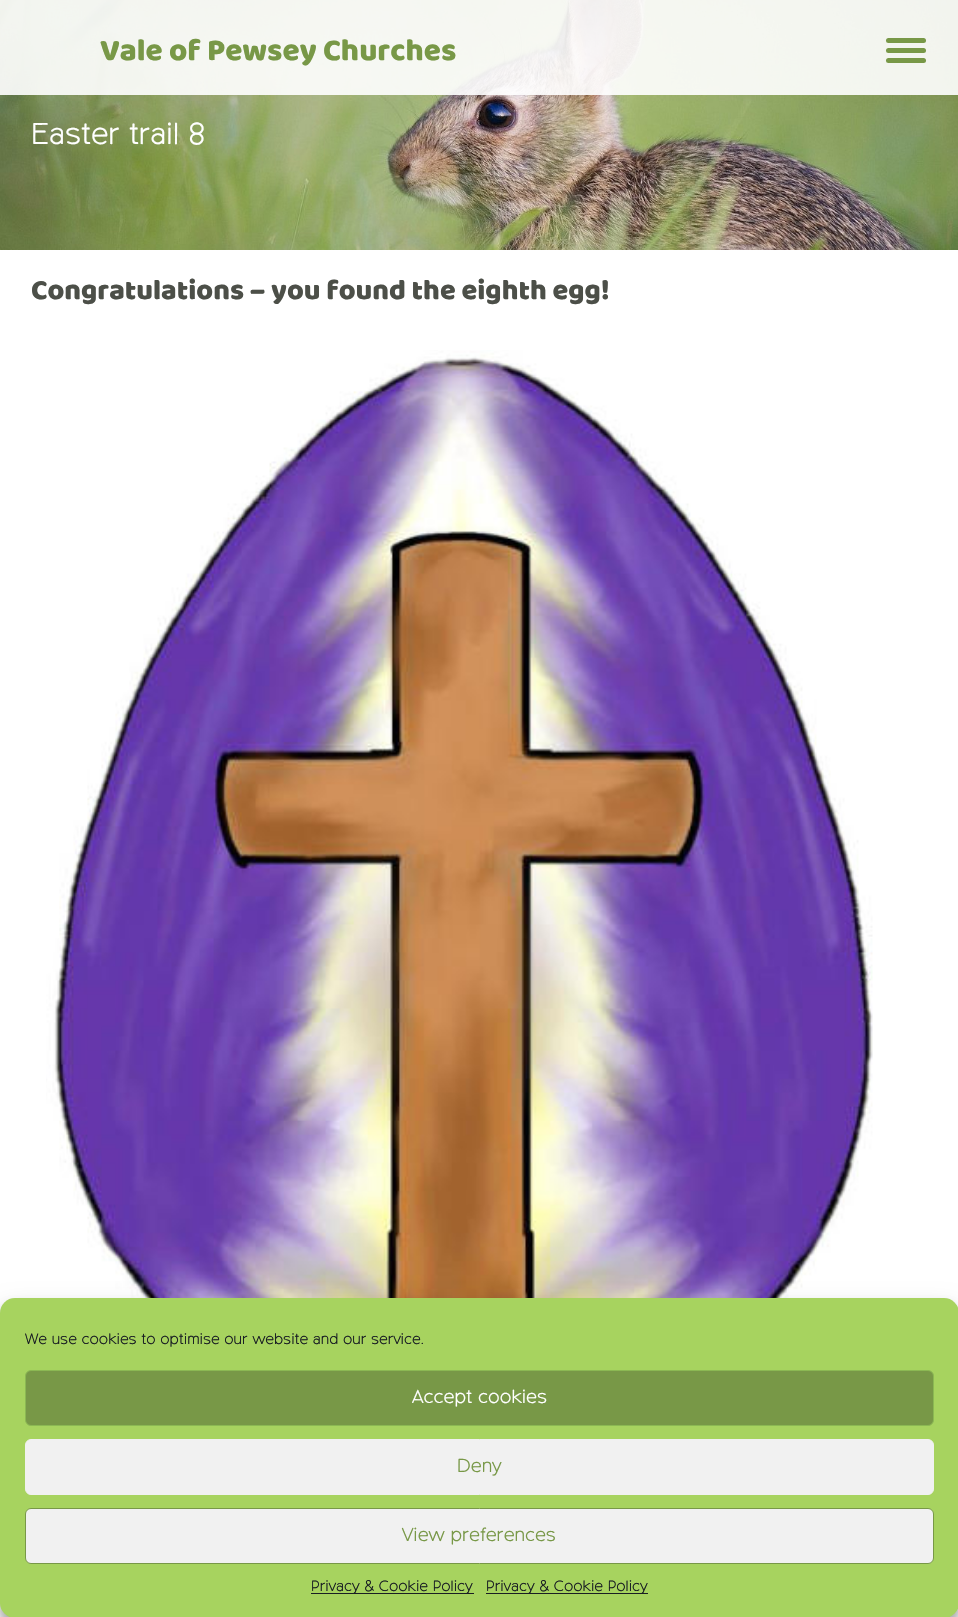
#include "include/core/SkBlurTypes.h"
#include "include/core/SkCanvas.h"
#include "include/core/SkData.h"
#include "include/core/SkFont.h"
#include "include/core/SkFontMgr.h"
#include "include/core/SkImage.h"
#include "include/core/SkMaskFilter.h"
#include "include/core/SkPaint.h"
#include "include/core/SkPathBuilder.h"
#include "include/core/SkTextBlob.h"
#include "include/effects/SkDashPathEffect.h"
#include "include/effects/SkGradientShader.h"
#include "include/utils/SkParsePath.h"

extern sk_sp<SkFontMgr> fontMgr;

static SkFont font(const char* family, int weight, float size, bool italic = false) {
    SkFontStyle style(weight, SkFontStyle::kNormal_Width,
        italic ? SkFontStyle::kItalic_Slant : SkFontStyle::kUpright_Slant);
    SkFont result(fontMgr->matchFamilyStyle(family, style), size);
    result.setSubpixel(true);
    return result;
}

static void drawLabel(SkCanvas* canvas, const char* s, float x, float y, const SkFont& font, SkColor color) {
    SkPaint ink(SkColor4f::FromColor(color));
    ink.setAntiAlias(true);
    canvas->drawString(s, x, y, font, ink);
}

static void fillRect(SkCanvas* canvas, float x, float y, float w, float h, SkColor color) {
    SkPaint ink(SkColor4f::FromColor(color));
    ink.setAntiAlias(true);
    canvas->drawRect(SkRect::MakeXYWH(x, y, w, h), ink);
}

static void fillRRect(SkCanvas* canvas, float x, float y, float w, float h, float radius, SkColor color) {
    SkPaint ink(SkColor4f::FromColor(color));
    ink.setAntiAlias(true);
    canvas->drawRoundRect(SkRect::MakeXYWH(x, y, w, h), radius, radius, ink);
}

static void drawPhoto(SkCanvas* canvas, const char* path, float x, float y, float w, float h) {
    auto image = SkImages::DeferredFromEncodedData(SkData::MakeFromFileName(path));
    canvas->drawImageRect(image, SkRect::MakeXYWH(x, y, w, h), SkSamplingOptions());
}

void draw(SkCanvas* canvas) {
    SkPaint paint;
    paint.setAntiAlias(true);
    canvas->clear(0xFFFFFFFF);
    drawPhoto(canvas, "assets/img1.png", 0, 0, 958, 250);
    fillRect(canvas, 0, 0, 958, 95, 0xE6FFFFFF);
    SkFont font1 = font("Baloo", 400, 31.25f);
    drawLabel(canvas, "Vale of Pewsey Churches", 100, 60, font1, 0xFF789847);
    fillRRect(canvas, 886, 38, 40, 5, 2.5f, 0xFF789847);
    fillRRect(canvas, 886, 48, 40, 5, 2.5f, 0xFF789847);
    fillRRect(canvas, 886, 58, 40, 5, 2.5f, 0xFF789847);
    SkFont font2 = font("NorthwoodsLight", 400, 30);
    drawLabel(canvas, "Easter trail 8", 31, 144, font2, 0xFFFFFFFF);
    SkFont font3 = font("Baloo", 400, 28.75f);
    drawLabel(canvas, "Congratulations – you found the eighth egg!", 31, 299, font3, 0xFF4C4F48);
    drawPhoto(canvas, "assets/img2.png", 46, 350, 827, 948);
    paint.setColor(0x3B000000);
    paint.setMaskFilter(SkMaskFilter::MakeBlur(kNormal_SkBlurStyle, 4));
    canvas->drawRoundRect(SkRect::MakeXYWH(0, 1305, 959, 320), 15, 15, paint);
    paint.setMaskFilter(nullptr);
    paint.setColor(0x30000000);
    paint.setMaskFilter(SkMaskFilter::MakeBlur(kNormal_SkBlurStyle, 12.5f));
    canvas->drawRoundRect(SkRect::MakeXYWH(0, 1310, 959, 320), 15, 15, paint);
    paint.setMaskFilter(nullptr);
    fillRRect(canvas, 0, 1298, 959, 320, 15, 0xFFA7D35F);
    SkFont font4 = font("NorthwoodsLight", 400, 15);
    drawLabel(canvas, "We use cookies to optimise our website and our service.", 25, 1344, font4, 0xFF191E23);
    paint.setColor(0xFF789847);
    canvas->drawRoundRect(SkRect::MakeXYWH(25.5f, 1370.5f, 908, 55), 5.5f, 5.5f, paint);
    paint.setStroke(true);
    paint.setStrokeWidth(1);
    paint.setColor(0xFF8BB853);
    canvas->drawRoundRect(SkRect::MakeXYWH(25.5f, 1370.5f, 908, 55), 5.5f, 5.5f, paint);
    SkFont font5 = font("NorthwoodsLight", 400, 18.75f);
    drawLabel(canvas, "Accept cookies", 412, 1403, font5, 0xFFFFFFFF);
    paint.setStroke(false);
    paint.setColor(0xFFF1F1F1);
    canvas->drawRoundRect(SkRect::MakeXYWH(25.5f, 1439.5f, 908, 55), 5.5f, 5.5f, paint);
    paint.setStroke(true);
    canvas->drawRoundRect(SkRect::MakeXYWH(25.5f, 1439.5f, 908, 55), 5.5f, 5.5f, paint);
    drawLabel(canvas, "Deny", 457, 1472, font5, 0xFF789847);
    paint.setStroke(false);
    canvas->drawRoundRect(SkRect::MakeXYWH(25.5f, 1508.5f, 908, 55), 5.5f, 5.5f, paint);
    paint.setStroke(true);
    paint.setColor(0xFF789847);
    canvas->drawRoundRect(SkRect::MakeXYWH(25.5f, 1508.5f, 908, 55), 5.5f, 5.5f, paint);
    drawLabel(canvas, "View preferences", 402, 1541, font5, 0xFF789847);
    fillRect(canvas, 311, 1593, 163, 1, 0xFF191E23);
    drawLabel(canvas, "Privacy & Cookie Policy", 311, 1591, font4, 0xFF191E23);
    fillRect(canvas, 486, 1593, 162, 1, 0xFF191E23);
    drawLabel(canvas, "Privacy & Cookie Policy", 486, 1591, font4, 0xFF191E23);
}
